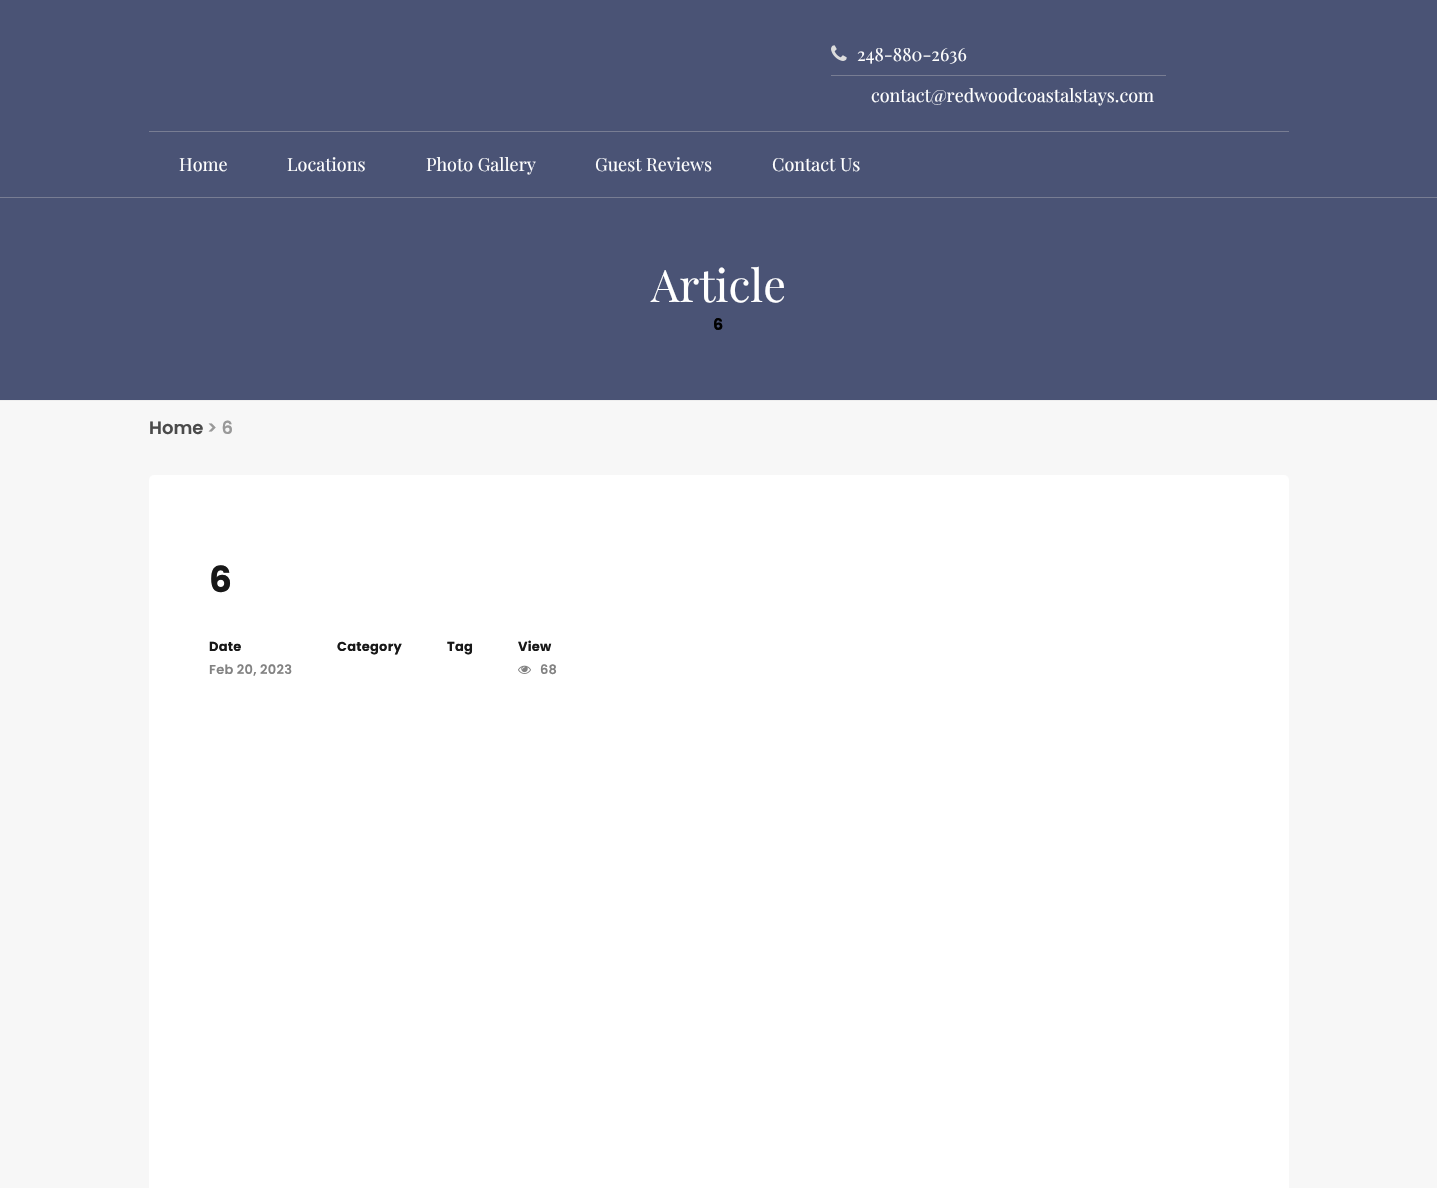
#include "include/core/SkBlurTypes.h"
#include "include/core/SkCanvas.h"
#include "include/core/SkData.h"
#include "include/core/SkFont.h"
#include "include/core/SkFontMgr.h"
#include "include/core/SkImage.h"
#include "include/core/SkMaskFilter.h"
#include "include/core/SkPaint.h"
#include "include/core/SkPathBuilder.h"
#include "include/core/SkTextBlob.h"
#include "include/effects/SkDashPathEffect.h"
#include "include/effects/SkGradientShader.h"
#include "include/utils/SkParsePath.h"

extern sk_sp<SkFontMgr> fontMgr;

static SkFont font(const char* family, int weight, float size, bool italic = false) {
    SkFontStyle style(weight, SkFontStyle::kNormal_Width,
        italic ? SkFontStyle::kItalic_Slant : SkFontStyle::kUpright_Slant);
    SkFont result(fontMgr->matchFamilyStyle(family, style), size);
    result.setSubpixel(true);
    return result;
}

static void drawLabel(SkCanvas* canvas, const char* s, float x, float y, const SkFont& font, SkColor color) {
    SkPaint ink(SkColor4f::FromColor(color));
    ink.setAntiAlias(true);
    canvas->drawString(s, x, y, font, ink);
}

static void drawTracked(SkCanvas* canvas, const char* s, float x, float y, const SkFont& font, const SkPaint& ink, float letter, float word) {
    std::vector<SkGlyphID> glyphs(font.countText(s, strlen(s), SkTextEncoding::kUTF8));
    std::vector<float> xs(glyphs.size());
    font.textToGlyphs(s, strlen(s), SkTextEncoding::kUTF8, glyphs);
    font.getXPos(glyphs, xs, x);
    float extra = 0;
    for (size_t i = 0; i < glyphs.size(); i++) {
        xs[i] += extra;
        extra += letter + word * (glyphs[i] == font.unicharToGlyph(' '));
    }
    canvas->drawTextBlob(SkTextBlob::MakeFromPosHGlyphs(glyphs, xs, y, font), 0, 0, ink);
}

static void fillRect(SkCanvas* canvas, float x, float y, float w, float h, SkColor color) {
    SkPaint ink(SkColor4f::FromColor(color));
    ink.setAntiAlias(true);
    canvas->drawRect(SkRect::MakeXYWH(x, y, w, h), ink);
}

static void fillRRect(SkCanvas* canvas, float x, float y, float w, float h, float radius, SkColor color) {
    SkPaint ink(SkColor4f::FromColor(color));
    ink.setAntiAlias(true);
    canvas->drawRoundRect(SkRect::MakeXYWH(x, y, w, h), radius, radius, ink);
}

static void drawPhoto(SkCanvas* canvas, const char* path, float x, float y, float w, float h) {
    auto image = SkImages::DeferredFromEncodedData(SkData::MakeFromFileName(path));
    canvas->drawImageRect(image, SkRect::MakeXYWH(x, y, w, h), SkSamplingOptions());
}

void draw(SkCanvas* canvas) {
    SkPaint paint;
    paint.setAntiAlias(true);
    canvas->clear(0xFF4A5375);
    fillRect(canvas, 149, 131, 1140, 1, 0xFF787D93);
    fillRect(canvas, 831, 75, 335, 1, 0xFF787D93);
    drawPhoto(canvas, "assets/img1.png", 831, 45, 16, 16);
    SkFont font1 = font("Playfair Display", 400, 18);
    drawLabel(canvas, "248-880-2636", 857, 61, font1, 0xFFFFFFFF);
    drawLabel(canvas, "contact@redwoodcoastalstays.com", 871, 102, font1, 0xFFFFFFFF);
    fillRect(canvas, 0, 197, 1437, 1, 0xFF787D93);
    drawLabel(canvas, "Home", 179, 171, font1, 0xFFFFFFFF);
    drawLabel(canvas, "Locations", 287, 171, font1, 0xFFFFFFFF);
    drawLabel(canvas, "Photo Gallery", 426, 171, font1, 0xFFFFFFFF);
    drawLabel(canvas, "Guest Reviews", 595, 171, font1, 0xFFFFFFFF);
    drawLabel(canvas, "Contact Us", 772, 171, font1, 0xFFFFFFFF);
    fillRect(canvas, 0, 400, 1437, 1, 0xFFEEEEEE);
    SkFont font2 = font("Playfair Display", 400, 45);
    drawLabel(canvas, "Article", 651, 302, font2, 0xFFFFFFFF);
    SkFont font3 = font("Poppins", 700, 16);
    drawLabel(canvas, "6", 713, 330, font3, 0xFF000000);
    fillRect(canvas, 0, 401, 1437, 787, 0xFFF7F7F7);
    SkFont font4 = font("Poppins", 600, 18);
    drawLabel(canvas, "Home", 149, 434, font4, 0xFF4B4B4B);
    drawLabel(canvas, "> 6", 207, 434, font4, 0xFF999999);
    fillRRect(canvas, 149, 475, 1140, 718, 5, 0xFFFFFFFF);
    SkFont font5 = font("Poppins", 700, 36);
    drawLabel(canvas, "6", 209, 592, font5, 0xFF181818);
    SkFont font6 = font("Poppins", 700, 13);
    paint.setColor(0xFF181818);
    drawTracked(canvas, "Date", 209, 651, font6, paint, 0.25f, 0);
    SkFont font7 = font("Poppins", 600, 13);
    paint.setColor(0xFF828282);
    drawTracked(canvas, "Feb 20, 2023", 209, 674, font7, paint, 0.25f, 0);
    paint.setColor(0xFF181818);
    drawTracked(canvas, "Category", 337, 651, font6, paint, 0.25f, 0);
    drawTracked(canvas, "Tag", 447, 651, font6, paint, 0.25f, 0);
    drawTracked(canvas, "View", 518, 651, font6, paint, 0.25f, 0);
    drawPhoto(canvas, "assets/img2.png", 518, 665, 13, 9);
    paint.setColor(0xFF828282);
    drawTracked(canvas, "68", 540, 674, font7, paint, 0.25f, 0);
}
